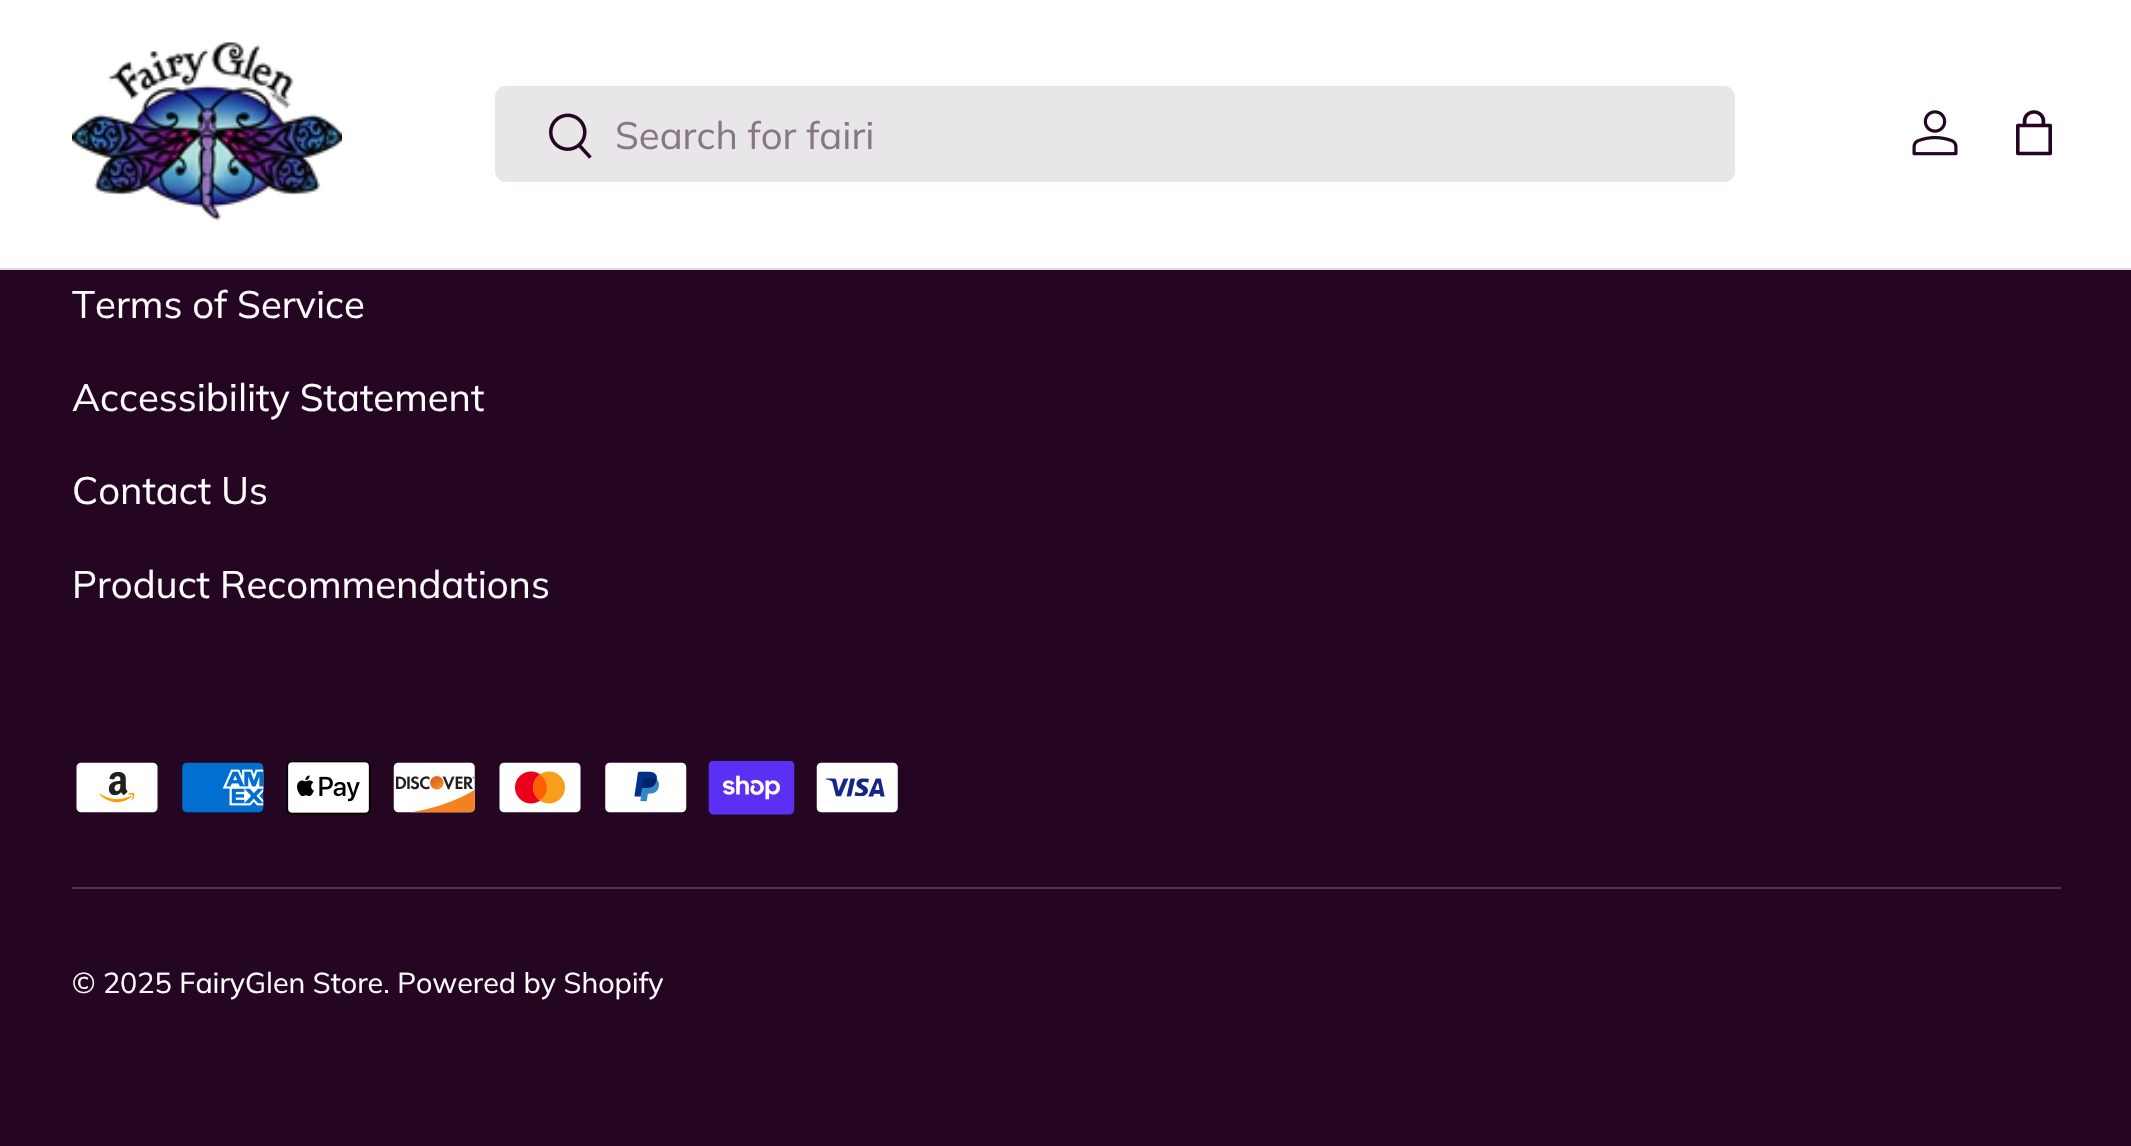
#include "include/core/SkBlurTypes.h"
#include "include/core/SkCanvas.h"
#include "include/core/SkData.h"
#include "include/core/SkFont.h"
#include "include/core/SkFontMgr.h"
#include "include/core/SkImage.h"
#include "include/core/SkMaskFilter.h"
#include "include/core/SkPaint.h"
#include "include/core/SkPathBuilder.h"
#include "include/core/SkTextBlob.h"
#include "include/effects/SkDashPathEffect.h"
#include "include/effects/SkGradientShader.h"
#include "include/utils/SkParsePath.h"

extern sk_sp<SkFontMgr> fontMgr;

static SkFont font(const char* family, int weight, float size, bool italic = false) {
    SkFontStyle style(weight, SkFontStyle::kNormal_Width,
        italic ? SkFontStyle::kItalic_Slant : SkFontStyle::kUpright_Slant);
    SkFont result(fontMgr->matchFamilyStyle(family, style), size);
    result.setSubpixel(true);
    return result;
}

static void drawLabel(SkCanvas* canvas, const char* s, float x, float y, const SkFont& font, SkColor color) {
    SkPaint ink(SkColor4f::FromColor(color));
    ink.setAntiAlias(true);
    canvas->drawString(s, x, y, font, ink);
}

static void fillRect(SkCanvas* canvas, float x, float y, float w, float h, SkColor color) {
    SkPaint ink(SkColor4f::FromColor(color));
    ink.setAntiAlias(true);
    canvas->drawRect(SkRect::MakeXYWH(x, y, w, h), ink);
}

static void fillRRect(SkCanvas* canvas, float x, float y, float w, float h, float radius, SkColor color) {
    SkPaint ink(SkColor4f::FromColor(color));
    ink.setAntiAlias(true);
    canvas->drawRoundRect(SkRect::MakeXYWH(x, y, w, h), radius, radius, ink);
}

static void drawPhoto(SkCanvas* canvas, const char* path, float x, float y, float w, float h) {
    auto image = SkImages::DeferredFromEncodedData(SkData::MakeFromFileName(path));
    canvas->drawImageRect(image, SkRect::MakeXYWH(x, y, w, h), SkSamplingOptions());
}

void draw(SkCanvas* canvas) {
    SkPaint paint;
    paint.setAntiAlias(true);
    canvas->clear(0xFF240522);
    fillRect(canvas, 0, 0, 2131, 268, 0xFFFFFFFF);
    fillRect(canvas, 0, 268, 2131, 2, 0xFFDEDADE);
    drawPhoto(canvas, "assets/img1.png", 72, 42, 270, 179);
    fillRRect(canvas, 495, 86, 1240, 96, 11, 0xFFE9E6E9);
    drawPhoto(canvas, "assets/img2.png", 549, 113, 43, 46);
    SkFont font1 = font("Muli", 400, 38.25f);
    drawLabel(canvas, "Search for fairi", 615, 149, font1, 0xFF877686);
    drawPhoto(canvas, "assets/img3.png", 1912, 110, 46, 46);
    drawPhoto(canvas, "assets/img4.png", 2016, 110, 36, 46);
    drawLabel(canvas, "Terms of Service", 72, 318, font1, 0xFFFFFFFF);
    drawLabel(canvas, "Accessibility Statement", 72, 411, font1, 0xFFFFFFFF);
    drawLabel(canvas, "Contact Us", 72, 504, font1, 0xFFFFFFFF);
    drawLabel(canvas, "Product Recommendations", 72, 598, font1, 0xFFFFFFFF);
    drawPhoto(canvas, "assets/img5.png", 76, 762, 82, 51);
    drawPhoto(canvas, "assets/img6.png", 182, 762, 82, 51);
    drawPhoto(canvas, "assets/img7.png", 286, 761, 85, 54);
    drawPhoto(canvas, "assets/img8.png", 393, 762, 82, 51);
    drawPhoto(canvas, "assets/img9.png", 499, 762, 82, 51);
    drawPhoto(canvas, "assets/img10.png", 605, 762, 82, 51);
    drawPhoto(canvas, "assets/img11.png", 708, 761, 87, 54);
    drawPhoto(canvas, "assets/img12.png", 816, 762, 82, 51);
    fillRect(canvas, 72, 887, 1989, 2, 0xFF50374E);
    SkFont font2 = font("Muli", 400, 28.7f);
    drawLabel(canvas, "© 2025 FairyGlen Store. Powered by Shopify", 72, 993, font2, 0xFFFFFFFF);
}
